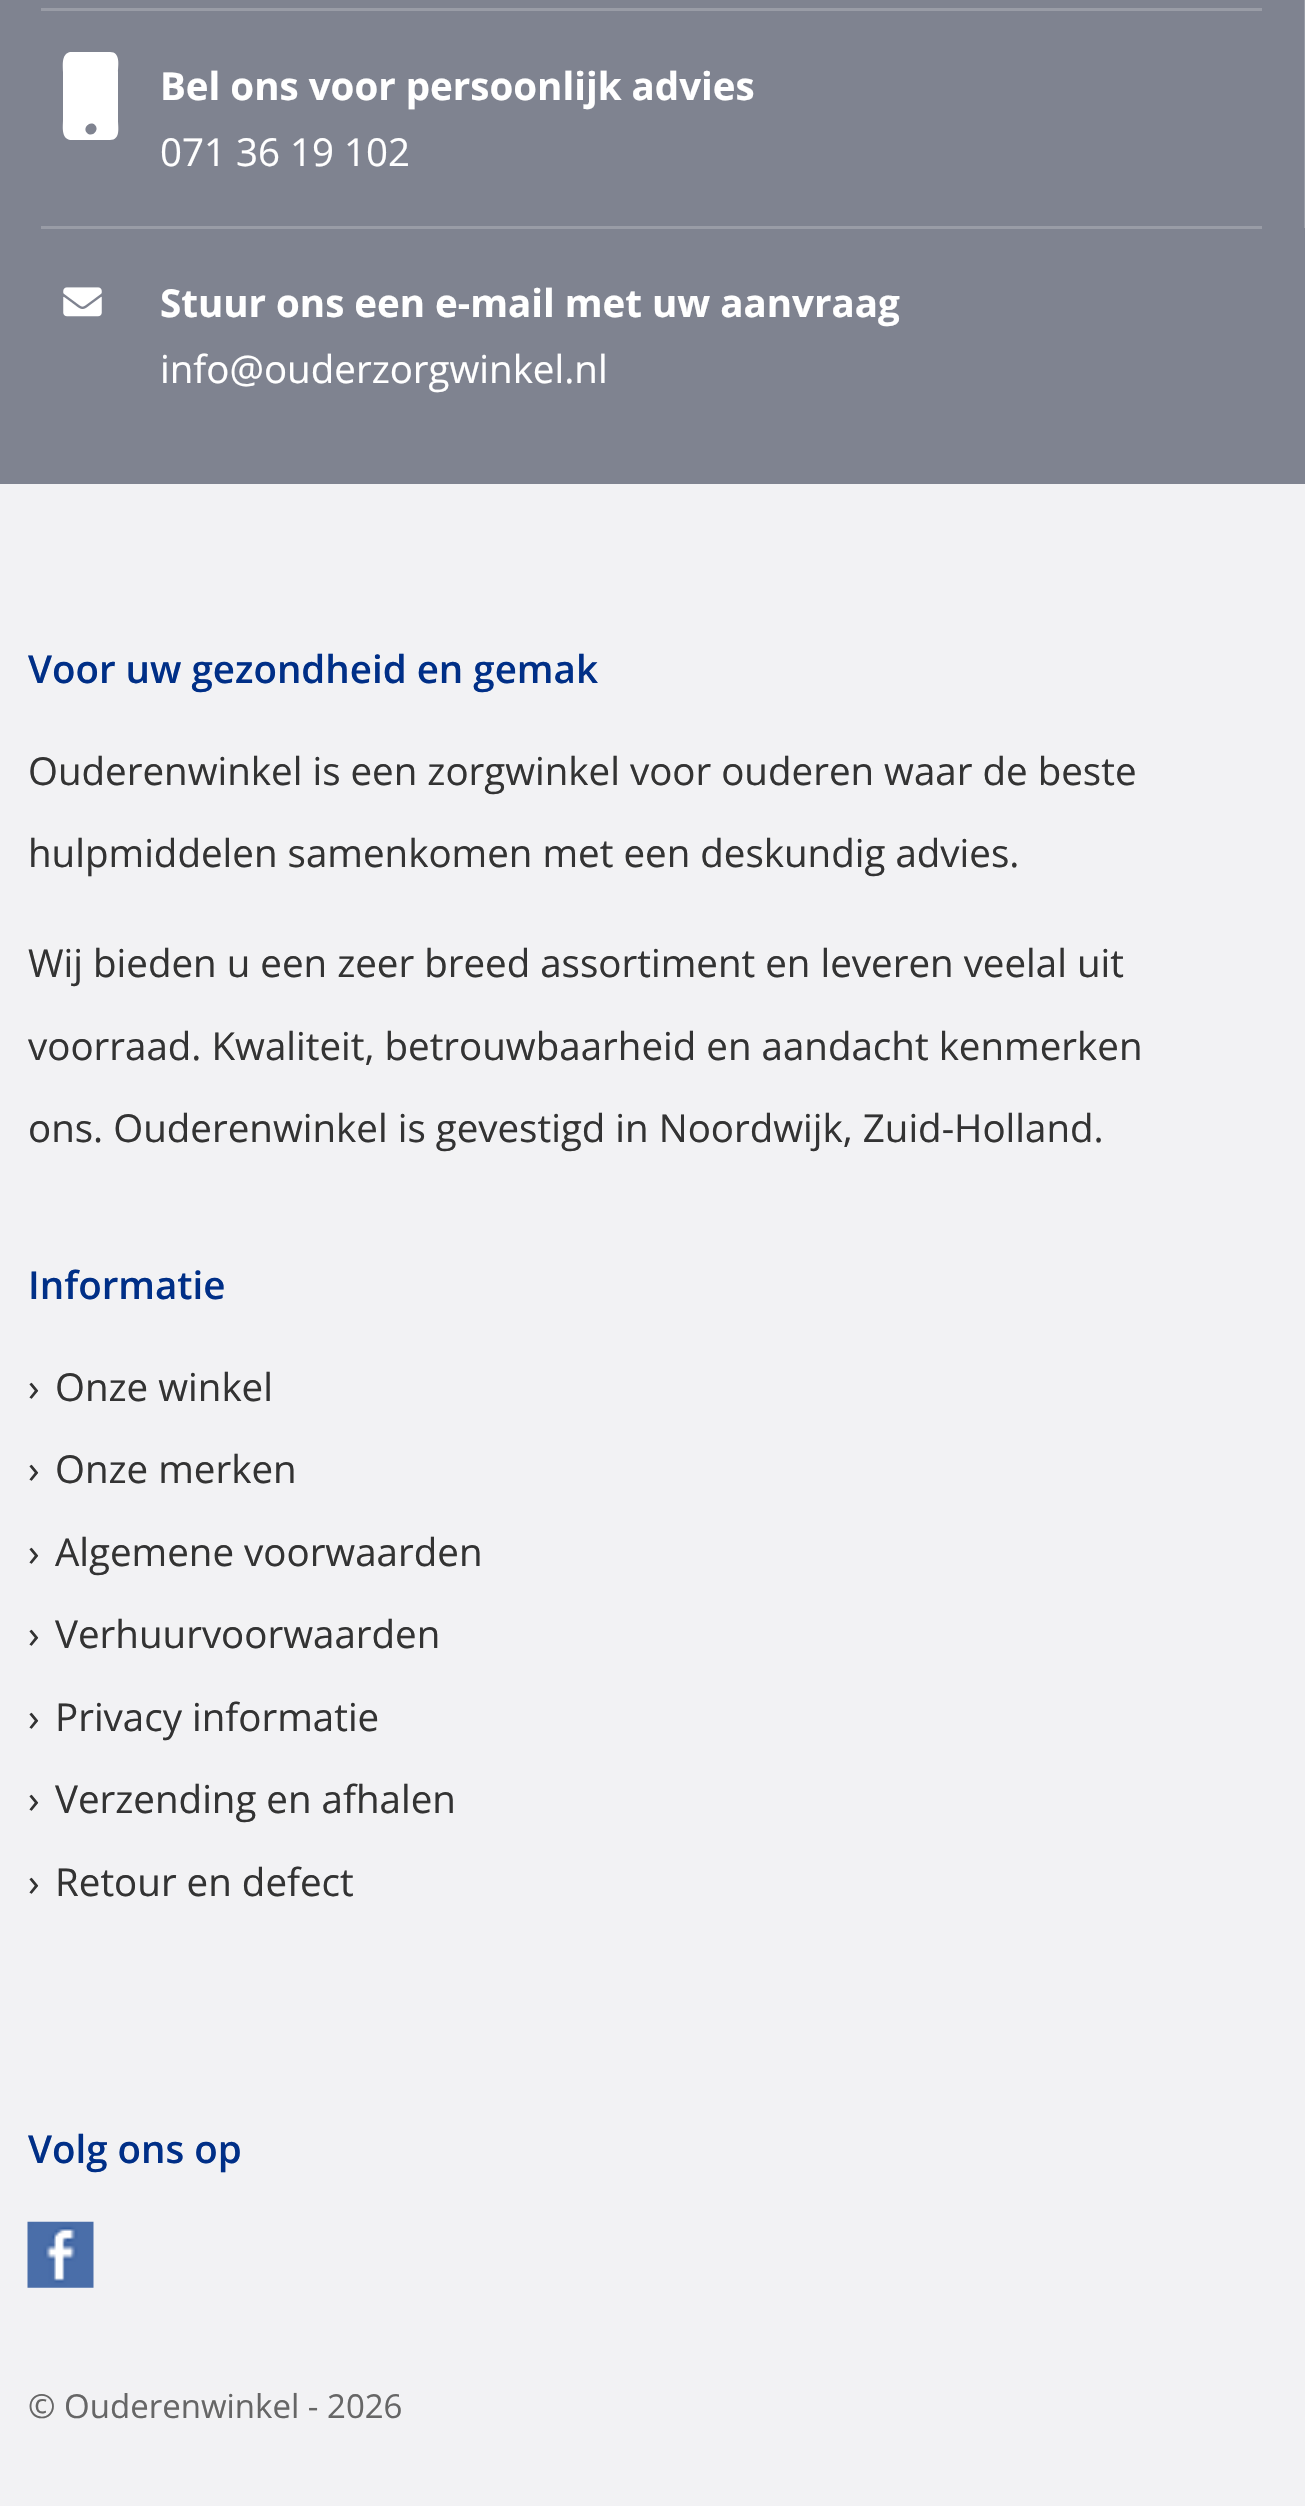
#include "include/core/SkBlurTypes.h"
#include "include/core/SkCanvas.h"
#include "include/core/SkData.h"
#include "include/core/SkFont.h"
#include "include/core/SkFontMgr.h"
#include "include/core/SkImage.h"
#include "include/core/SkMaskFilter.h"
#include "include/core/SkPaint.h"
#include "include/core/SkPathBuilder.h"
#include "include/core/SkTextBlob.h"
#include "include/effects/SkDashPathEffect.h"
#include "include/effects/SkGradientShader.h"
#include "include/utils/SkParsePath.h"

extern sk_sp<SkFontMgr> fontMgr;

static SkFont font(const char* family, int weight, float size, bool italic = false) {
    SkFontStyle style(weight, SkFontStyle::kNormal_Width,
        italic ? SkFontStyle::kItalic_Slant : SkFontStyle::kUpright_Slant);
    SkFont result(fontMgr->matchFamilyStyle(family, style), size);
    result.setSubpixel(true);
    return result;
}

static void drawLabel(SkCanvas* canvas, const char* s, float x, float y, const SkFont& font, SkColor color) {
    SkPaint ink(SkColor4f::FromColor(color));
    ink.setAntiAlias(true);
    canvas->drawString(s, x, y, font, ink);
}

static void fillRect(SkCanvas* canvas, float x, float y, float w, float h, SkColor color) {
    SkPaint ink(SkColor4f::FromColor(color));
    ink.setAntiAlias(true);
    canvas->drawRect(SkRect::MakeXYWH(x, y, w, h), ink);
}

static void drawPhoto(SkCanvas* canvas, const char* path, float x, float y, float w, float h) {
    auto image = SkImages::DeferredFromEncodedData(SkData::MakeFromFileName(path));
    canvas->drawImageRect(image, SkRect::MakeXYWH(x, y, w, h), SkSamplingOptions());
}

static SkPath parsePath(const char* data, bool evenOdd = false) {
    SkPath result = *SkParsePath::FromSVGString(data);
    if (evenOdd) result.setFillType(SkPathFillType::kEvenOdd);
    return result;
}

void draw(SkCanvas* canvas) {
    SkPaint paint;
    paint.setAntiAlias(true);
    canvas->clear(0xFF7F8390);
    fillRect(canvas, 1304, 0, 1, 228, 0xFF999CA6);
    fillRect(canvas, 41, 8, 1221, 3, 0xFF999CA6);
    fillRect(canvas, 41, 226, 1221, 3, 0xFF999CA6);
    paint.setColor(0xFFFFFFFF);
    canvas->drawPath(parsePath("M110 52C121 52 118 66 118 72V120C118 127 121 140 110 140H70C61 138 63 126 63 120V72C63 66 61 54 70 52ZM87 133C92 138 100 130 95 125C90 120 82 128 87 133Z"), paint);
    SkFont font1 = font("Open Sans", 700, 38.5f);
    drawLabel(canvas, "Bel ons voor persoonlijk advies", 160, 100, font1, 0xFFFFFFFF);
    SkFont font2 = font("Open Sans", 400, 38.5f);
    drawLabel(canvas, "071 36 19 102", 160, 166, font2, 0xFFFFFFFF);
    drawPhoto(canvas, "assets/img1.png", 63, 287, 39, 30);
    drawLabel(canvas, "Stuur ons een e-mail met uw aanvraag", 160, 317, font1, 0xFFFFFFFF);
    drawLabel(canvas, "info@ouderzorgwinkel.nl", 160, 383, font2, 0xFFFFFFFF);
    fillRect(canvas, 0, 484, 1305, 2022, 0xFFF2F2F4);
    SkFont font3 = font("Open Sans", 600, 38.5f);
    drawLabel(canvas, "Voor uw gezondheid en gemak", 28, 683, font3, 0xFF002F87);
    drawLabel(canvas, "Ouderenwinkel is een zorgwinkel voor ouderen waar de beste", 28, 785, font2, 0xFF333333);
    drawLabel(canvas, "hulpmiddelen samenkomen met een deskundig advies.", 28, 867, font2, 0xFF333333);
    drawLabel(canvas, "Wij bieden u een zeer breed assortiment en leveren veelal uit", 28, 977, font2, 0xFF333333);
    drawLabel(canvas, "voorraad. Kwaliteit, betrouwbaarheid en aandacht kenmerken", 28, 1060, font2, 0xFF333333);
    drawLabel(canvas, "ons. Ouderenwinkel is gevestigd in Noordwijk, Zuid-Holland.", 28, 1142, font2, 0xFF333333);
    drawLabel(canvas, "Informatie", 28, 1299, font3, 0xFF002F87);
    drawLabel(canvas, "›", 28, 1401, font2, 0xFF333333);
    drawLabel(canvas, "Onze winkel", 55, 1401, font2, 0xFF333333);
    drawLabel(canvas, "›", 28, 1483, font2, 0xFF333333);
    drawLabel(canvas, "Onze merken", 55, 1483, font2, 0xFF333333);
    drawLabel(canvas, "›", 28, 1566, font2, 0xFF333333);
    drawLabel(canvas, "Algemene voorwaarden", 55, 1566, font2, 0xFF333333);
    drawLabel(canvas, "›", 28, 1648, font2, 0xFF333333);
    drawLabel(canvas, "Verhuurvoorwaarden", 55, 1648, font2, 0xFF333333);
    drawLabel(canvas, "›", 28, 1731, font2, 0xFF333333);
    drawLabel(canvas, "Privacy informatie", 55, 1731, font2, 0xFF333333);
    drawLabel(canvas, "›", 28, 1813, font2, 0xFF333333);
    drawLabel(canvas, "Verzending en afhalen", 55, 1813, font2, 0xFF333333);
    drawLabel(canvas, "›", 28, 1896, font2, 0xFF333333);
    drawLabel(canvas, "Retour en defect", 55, 1896, font2, 0xFF333333);
    drawLabel(canvas, "Volg ons op", 28, 2163, font3, 0xFF002F87);
    drawPhoto(canvas, "assets/img2.png", 27, 2221, 67, 67);
    SkFont font4 = font("Open Sans", 400, 33);
    drawLabel(canvas, "© Ouderenwinkel - 2026", 28, 2418, font4, 0xFF666666);
}
